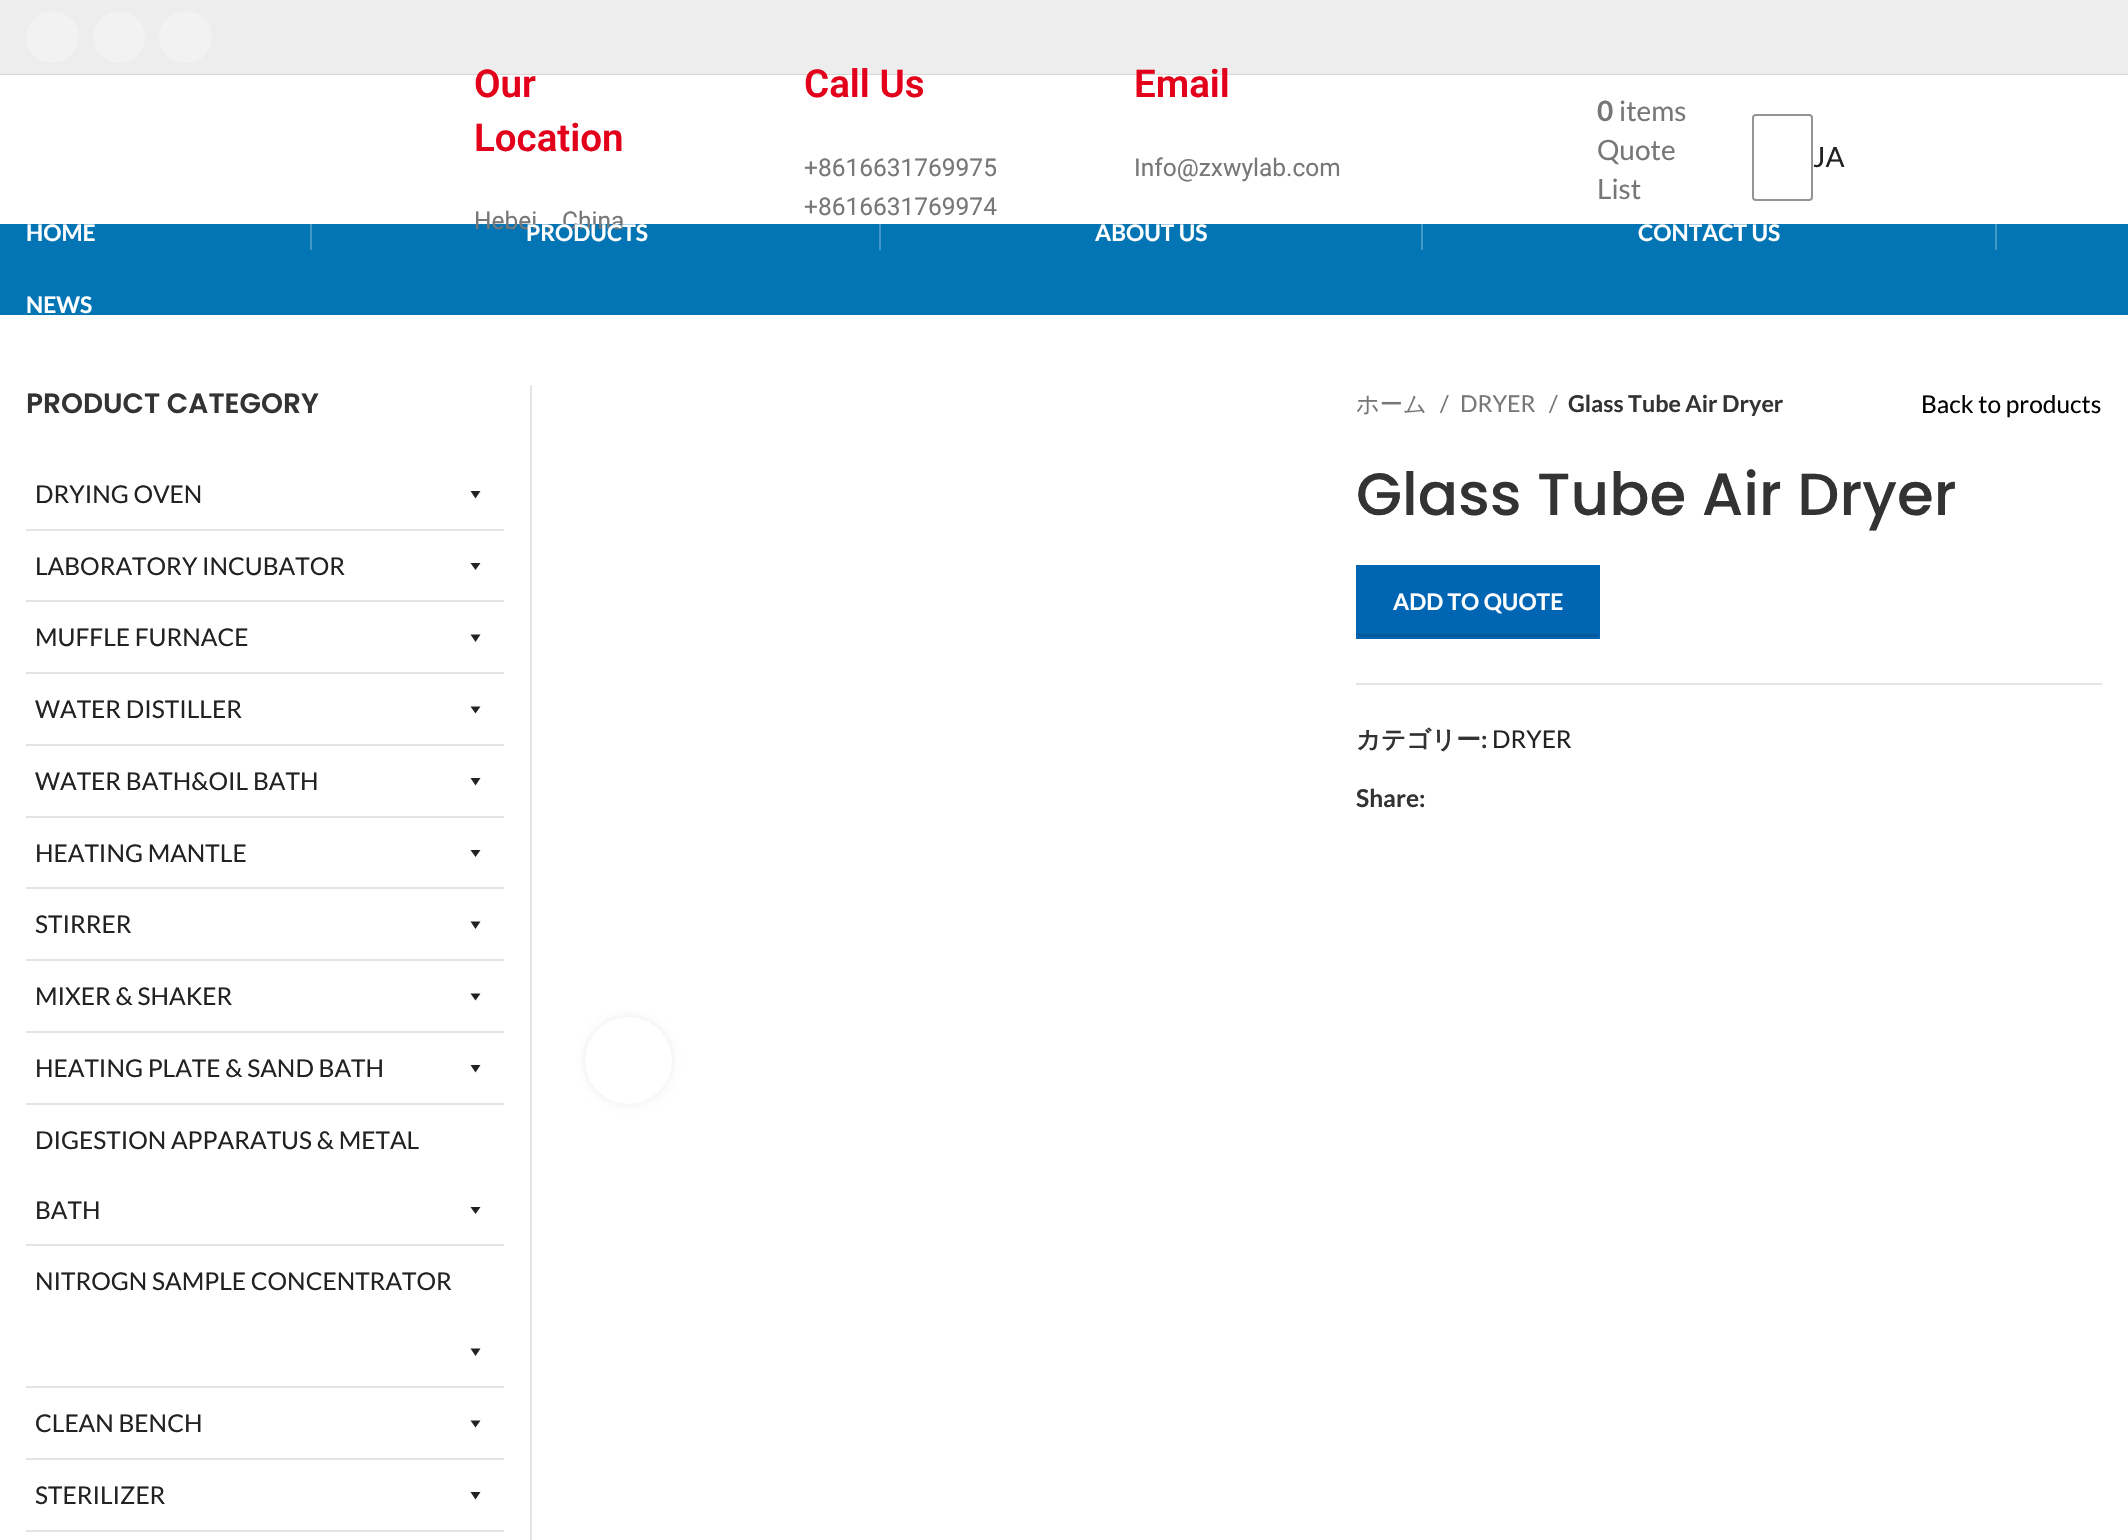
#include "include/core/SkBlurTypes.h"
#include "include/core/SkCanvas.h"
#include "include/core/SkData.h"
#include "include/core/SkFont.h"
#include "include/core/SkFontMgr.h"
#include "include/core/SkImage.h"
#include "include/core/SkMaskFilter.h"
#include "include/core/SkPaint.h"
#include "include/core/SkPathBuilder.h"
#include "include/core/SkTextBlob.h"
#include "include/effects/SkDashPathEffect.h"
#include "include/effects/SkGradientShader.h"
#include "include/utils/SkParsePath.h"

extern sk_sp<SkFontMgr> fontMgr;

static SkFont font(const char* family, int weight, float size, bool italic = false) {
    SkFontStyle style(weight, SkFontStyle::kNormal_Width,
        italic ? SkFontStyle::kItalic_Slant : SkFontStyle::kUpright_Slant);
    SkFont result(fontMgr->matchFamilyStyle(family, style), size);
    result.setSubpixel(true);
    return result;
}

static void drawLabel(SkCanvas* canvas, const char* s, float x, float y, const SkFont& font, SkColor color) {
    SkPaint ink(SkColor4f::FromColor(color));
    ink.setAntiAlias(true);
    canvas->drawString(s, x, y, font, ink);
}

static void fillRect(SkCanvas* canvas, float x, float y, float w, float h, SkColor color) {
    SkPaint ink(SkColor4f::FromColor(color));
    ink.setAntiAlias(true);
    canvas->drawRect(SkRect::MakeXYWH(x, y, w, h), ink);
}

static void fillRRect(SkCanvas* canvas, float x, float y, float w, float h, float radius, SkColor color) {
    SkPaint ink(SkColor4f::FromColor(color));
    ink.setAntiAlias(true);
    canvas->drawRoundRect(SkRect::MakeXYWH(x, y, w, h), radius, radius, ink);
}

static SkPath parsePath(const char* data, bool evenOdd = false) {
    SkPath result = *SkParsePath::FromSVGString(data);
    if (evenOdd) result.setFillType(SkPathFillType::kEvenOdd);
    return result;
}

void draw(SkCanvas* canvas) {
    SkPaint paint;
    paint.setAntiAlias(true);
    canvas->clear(0xFFFFFFFF);
    fillRect(canvas, 0, 0, 2128, 74, 0xFFEDEDED);
    fillRect(canvas, 0, 74, 2128, 1, 0xFFD7D7D7);
    fillRRect(canvas, 26, 11, 53, 52, 26, 0xFFF2F2F2);
    paint.setColor(0xFFF2F2F2);
    canvas->drawCircle(119, 37, 26, paint);
    fillRRect(canvas, 159, 11, 53, 52, 26, 0xFFF2F2F2);
    SkFont font1 = font("Roboto", 600, 38.5f);
    drawLabel(canvas, "Our", 474, 97, font1, 0xFFE2001A);
    drawLabel(canvas, "Location", 474, 151, font1, 0xFFE2001A);
    fillRect(canvas, 0, 224, 2128, 91, 0xFF0374B4);
    SkFont font2 = font("Roboto", 400, 24.5f);
    drawLabel(canvas, "Hebei", 474, 229, font2, 0xFF777777);
    SkFont font3 = font("WenQuanYi Zen Hei", 500, 24.5f);
    drawLabel(canvas, "，", 537, 229, font3, 0xFF777777);
    drawLabel(canvas, "China", 562, 229, font2, 0xFF777777);
    drawLabel(canvas, "Call Us", 804, 97, font1, 0xFFE2001A);
    drawLabel(canvas, "+8616631769975", 804, 176, font2, 0xFF777777);
    drawLabel(canvas, "+8616631769974", 804, 215, font2, 0xFF777777);
    drawLabel(canvas, "Email", 1134, 97, font1, 0xFFE2001A);
    drawLabel(canvas, "Info@zxwylab.com", 1134, 176, font2, 0xFF777777);
    SkFont font4 = font("Lato", 700, 28);
    drawLabel(canvas, "0", 1597, 121, font4, 0xFF777777);
    SkFont font5 = font("Lato", 400, 28);
    drawLabel(canvas, "items", 1619, 121, font5, 0xFF777777);
    drawLabel(canvas, "Quote", 1597, 160, font5, 0xFF777777);
    drawLabel(canvas, "List", 1597, 199, font5, 0xFF777777);
    paint.setStroke(true);
    paint.setStrokeWidth(2);
    paint.setColor(0xFF949494);
    canvas->drawRoundRect(SkRect::MakeXYWH(1753, 115, 59, 85), 3, 3, paint);
    drawLabel(canvas, "JA", 1813, 167, font5, 0xFF222222);
    fillRect(canvas, 1995, 224, 2, 26, 0xFF4297C7);
    fillRect(canvas, 1421, 224, 2, 26, 0xFF4297C7);
    fillRect(canvas, 879, 224, 2, 26, 0xFF4297C7);
    fillRect(canvas, 310, 224, 2, 26, 0xFF4297C7);
    SkFont font6 = font("Lato", 700, 22.75f);
    drawLabel(canvas, "HOME", 26, 241, font6, 0xFFFFFFFF);
    drawLabel(canvas, "PRODUCTS", 526, 241, font6, 0xFFFFFFFF);
    drawLabel(canvas, "ABOUT US", 1095, 241, font6, 0xFFFFFFFF);
    drawLabel(canvas, "CONTACT US", 1638, 241, font6, 0xFFFFFFFF);
    drawLabel(canvas, "NEWS", 26, 313, font6, 0xFFFFFFFF);
    fillRect(canvas, 530, 385, 2, 1155, 0xFFE4E4E4);
    SkFont font7 = font("Poppins", 600, 28);
    drawLabel(canvas, "PRODUCT CATEGORY", 26, 413, font7, 0xFF333333);
    SkFont font8 = font("Lato", 400, 24.5f);
    drawLabel(canvas, "DRYING OVEN", 35, 503, font8, 0xFF222222);
    paint.setStroke(false);
    paint.setColor(0xFF222222);
    canvas->drawPath(parsePath("M480.5 491L475.5 498.5L470.5 491Z"), paint);
    fillRect(canvas, 26, 529, 478, 2, 0xFFE4E4E4);
    drawLabel(canvas, "LABORATORY INCUBATOR", 35, 575, font8, 0xFF222222);
    canvas->drawPath(parsePath("M480.5 563L475.5 570L470.5 563Z"), paint);
    fillRect(canvas, 26, 600, 478, 2, 0xFFE4E4E4);
    drawLabel(canvas, "MUFFLE FURNACE", 35, 646, font8, 0xFF222222);
    canvas->drawPath(parsePath("M480.5 634.5L475.5 642L470.5 634.5Z"), paint);
    fillRect(canvas, 26, 672, 478, 2, 0xFFE4E4E4);
    drawLabel(canvas, "WATER DISTILLER", 35, 718, font8, 0xFF222222);
    canvas->drawPath(parsePath("M480.5 706.5L475.5 713.5L470.5 706.5Z"), paint);
    fillRect(canvas, 26, 744, 478, 2, 0xFFE4E4E4);
    drawLabel(canvas, "WATER BATH&OIL BATH", 35, 790, font8, 0xFF222222);
    canvas->drawPath(parsePath("M480.5 778L475.5 785.5L470.5 778Z"), paint);
    fillRect(canvas, 26, 816, 478, 2, 0xFFE4E4E4);
    drawLabel(canvas, "HEATING MANTLE", 35, 862, font8, 0xFF222222);
    canvas->drawPath(parsePath("M480.5 850L475.5 857L470.5 850Z"), paint);
    fillRect(canvas, 26, 887, 478, 2, 0xFFE4E4E4);
    drawLabel(canvas, "STIRRER", 35, 933, font8, 0xFF222222);
    canvas->drawPath(parsePath("M480.5 921.5L475.5 929L470.5 921.5Z"), paint);
    fillRect(canvas, 26, 959, 478, 2, 0xFFE4E4E4);
    drawLabel(canvas, "MIXER & SHAKER", 35, 1005, font8, 0xFF222222);
    canvas->drawPath(parsePath("M480.5 993.5L475.5 1000.5L470.5 993.5Z"), paint);
    fillRect(canvas, 26, 1031, 478, 2, 0xFFE4E4E4);
    drawLabel(canvas, "HEATING PLATE & SAND BATH", 35, 1077, font8, 0xFF222222);
    canvas->drawPath(parsePath("M480.5 1065L475.5 1072.5L470.5 1065Z"), paint);
    fillRect(canvas, 26, 1103, 478, 2, 0xFFE4E4E4);
    drawLabel(canvas, "DIGESTION APPARATUS & METAL", 35, 1149, font8, 0xFF222222);
    drawLabel(canvas, "BATH", 35, 1219, font8, 0xFF222222);
    canvas->drawPath(parsePath("M480.5 1207L475.5 1214L470.5 1207Z"), paint);
    fillRect(canvas, 26, 1244, 478, 2, 0xFFE4E4E4);
    drawLabel(canvas, "NITROGN SAMPLE CONCENTRATOR", 35, 1290, font8, 0xFF222222);
    canvas->drawPath(parsePath("M480.5 1348.5L475.5 1356L470.5 1348.5Z"), paint);
    fillRect(canvas, 26, 1386, 478, 2, 0xFFE4E4E4);
    drawLabel(canvas, "CLEAN BENCH", 35, 1432, font8, 0xFF222222);
    canvas->drawPath(parsePath("M480.5 1420.5L475.5 1427.5L470.5 1420.5Z"), paint);
    fillRect(canvas, 26, 1458, 478, 2, 0xFFE4E4E4);
    drawLabel(canvas, "STERILIZER", 35, 1504, font8, 0xFF222222);
    canvas->drawPath(parsePath("M480.5 1492L475.5 1499.5L470.5 1492Z"), paint);
    fillRect(canvas, 26, 1530, 478, 2, 0xFFE4E4E4);
    SkFont font9 = font("WenQuanYi Zen Hei", 500, 23.25f);
    drawLabel(canvas, "ホーム", 1356, 412, font9, 0xFF777777);
    SkFont font10 = font("Lato", 400, 23.25f);
    drawLabel(canvas, "/", 1440, 412, font10, 0xFF777777);
    drawLabel(canvas, "DRYER", 1460, 412, font10, 0xFF777777);
    drawLabel(canvas, "/", 1549, 412, font10, 0xFF777777);
    SkFont font11 = font("Lato", 700, 23.25f);
    drawLabel(canvas, "Glass Tube Air Dryer", 1568, 412, font11, 0xFF333333);
    drawLabel(canvas, "Back to products", 1921, 413, font8, 0xFF000000);
    SkFont font12 = font("Poppins", 500, 59.5f);
    drawLabel(canvas, "Glass Tube Air Dryer", 1356, 515, font12, 0xFF333333);
    fillRect(canvas, 1358, 567, 240, 67, 0xFF0066B4);
    fillRect(canvas, 1358, 634, 240, 3, 0xFF005799);
    paint.setStroke(true);
    paint.setColor(0xFF0066B4);
    canvas->drawRect(SkRect::MakeXYWH(1357, 566, 242, 72), paint);
    drawLabel(canvas, "ADD TO QUOTE", 1393, 610, font6, 0xFFFFFFFF);
    fillRect(canvas, 1356, 683, 746, 2, 0xFFE4E4E4);
    SkFont font13 = font("WenQuanYi Zen Hei", 700, 24.5f);
    drawLabel(canvas, "カテゴリー", 1356, 748, font13, 0xFF333333);
    SkFont font14 = font("Lato", 700, 24.5f);
    drawLabel(canvas, ":", 1481, 748, font14, 0xFF333333);
    drawLabel(canvas, "DRYER", 1492, 748, font8, 0xFF222222);
    drawLabel(canvas, "Share:", 1356, 807, font14, 0xFF333333);
    paint.setStroke(false);
    paint.setColor(0x14000000);
    paint.setMaskFilter(SkMaskFilter::MakeBlur(kNormal_SkBlurStyle, 4.5f));
    canvas->drawRoundRect(SkRect::MakeXYWH(585, 1017, 87, 87), 43.5f, 43.5f, paint);
    paint.setMaskFilter(nullptr);
    paint.setColor(0xFFFFFFFF);
    canvas->drawCircle(628.5f, 1060.5f, 43.5f, paint);
}
